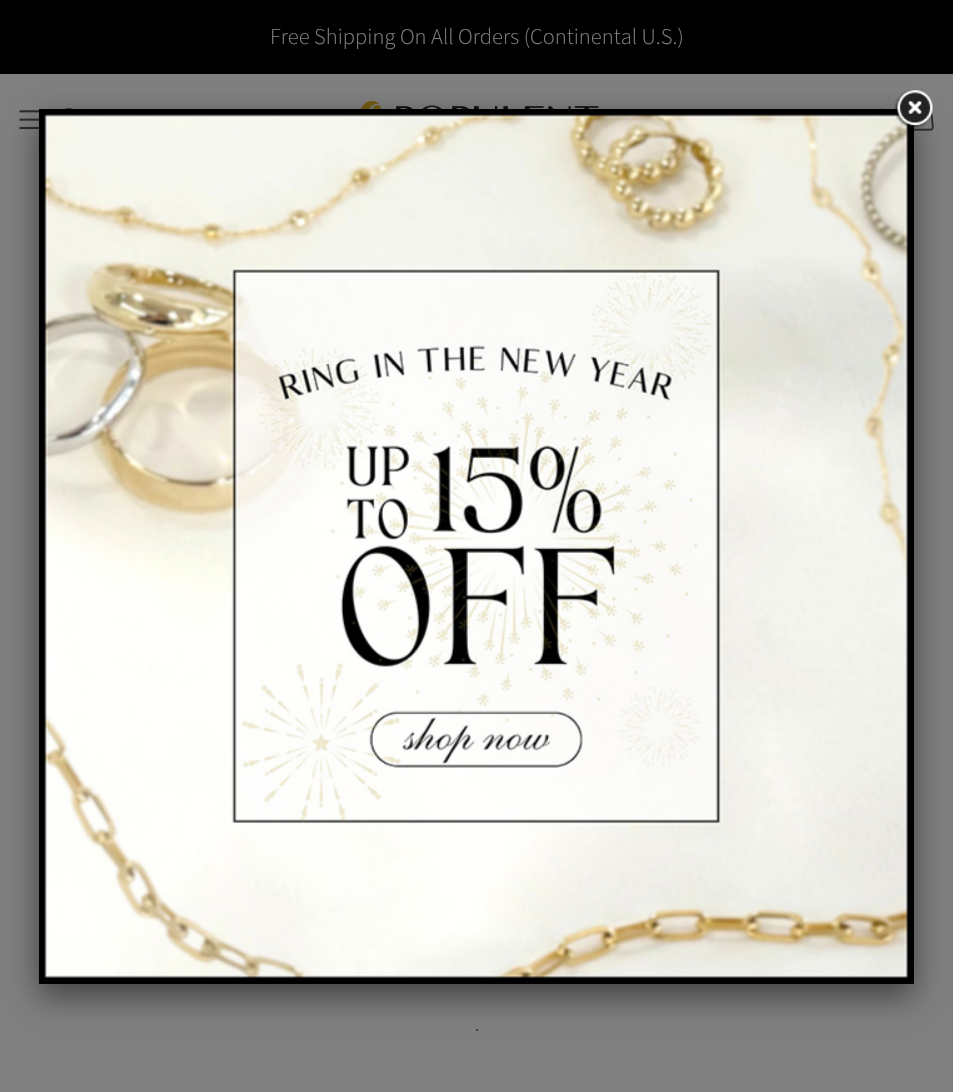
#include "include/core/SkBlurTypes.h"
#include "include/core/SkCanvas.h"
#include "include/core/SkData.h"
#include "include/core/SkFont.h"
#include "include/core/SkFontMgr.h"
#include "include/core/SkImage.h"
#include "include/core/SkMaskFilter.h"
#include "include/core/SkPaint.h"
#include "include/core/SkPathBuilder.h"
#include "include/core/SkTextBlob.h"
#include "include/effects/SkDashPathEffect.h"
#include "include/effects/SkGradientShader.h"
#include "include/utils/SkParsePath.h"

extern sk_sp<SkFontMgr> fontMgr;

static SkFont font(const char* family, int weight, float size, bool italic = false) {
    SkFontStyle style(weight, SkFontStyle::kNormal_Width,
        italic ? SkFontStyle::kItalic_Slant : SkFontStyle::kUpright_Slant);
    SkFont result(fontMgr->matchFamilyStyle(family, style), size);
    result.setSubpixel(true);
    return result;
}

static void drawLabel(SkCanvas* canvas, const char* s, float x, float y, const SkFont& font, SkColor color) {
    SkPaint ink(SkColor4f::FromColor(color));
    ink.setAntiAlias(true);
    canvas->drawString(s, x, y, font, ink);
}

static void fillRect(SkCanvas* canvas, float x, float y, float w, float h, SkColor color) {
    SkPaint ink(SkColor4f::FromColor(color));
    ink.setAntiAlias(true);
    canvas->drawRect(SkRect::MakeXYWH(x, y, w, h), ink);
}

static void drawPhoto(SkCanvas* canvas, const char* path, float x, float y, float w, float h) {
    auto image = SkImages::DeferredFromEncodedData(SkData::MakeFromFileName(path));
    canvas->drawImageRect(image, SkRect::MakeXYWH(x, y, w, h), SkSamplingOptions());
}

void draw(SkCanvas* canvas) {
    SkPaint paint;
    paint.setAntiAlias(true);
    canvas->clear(0xFF808080);
    fillRect(canvas, 0, 0, 953, 74, 0xFF000000);
    SkFont font1 = font("Source Sans Pro", 300, 22.5f);
    drawLabel(canvas, "Free Shipping On All Orders (Continental U.S.)", 270, 44, font1, 0xFF808080);
    drawPhoto(canvas, "assets/img3.png", 360, 101, 239, 8);
    drawPhoto(canvas, "assets/img4.png", 65, 108, 8, 1);
    drawPhoto(canvas, "assets/img5.png", 19, 110, 20, 20);
    drawPhoto(canvas, "assets/img6.png", 879, 108, 3, 1);
    drawPhoto(canvas, "assets/img7.png", 914, 113, 20, 18);
    paint.setColor(0x80000000);
    paint.setMaskFilter(SkMaskFilter::MakeBlur(kNormal_SkBlurStyle, 15.5f));
    canvas->drawRect(SkRect::MakeXYWH(39, 121, 875, 875), paint);
    paint.setMaskFilter(nullptr);
    drawPhoto(canvas, "assets/img2.png", 39, 109, 875, 875);
    drawPhoto(canvas, "assets/img1.png", 894, 89, 40, 40);
    SkFont font2 = font("Lato", 400, 18);
    drawLabel(canvas, ".", 475, 1031, font2, 0xFF404040);
}
